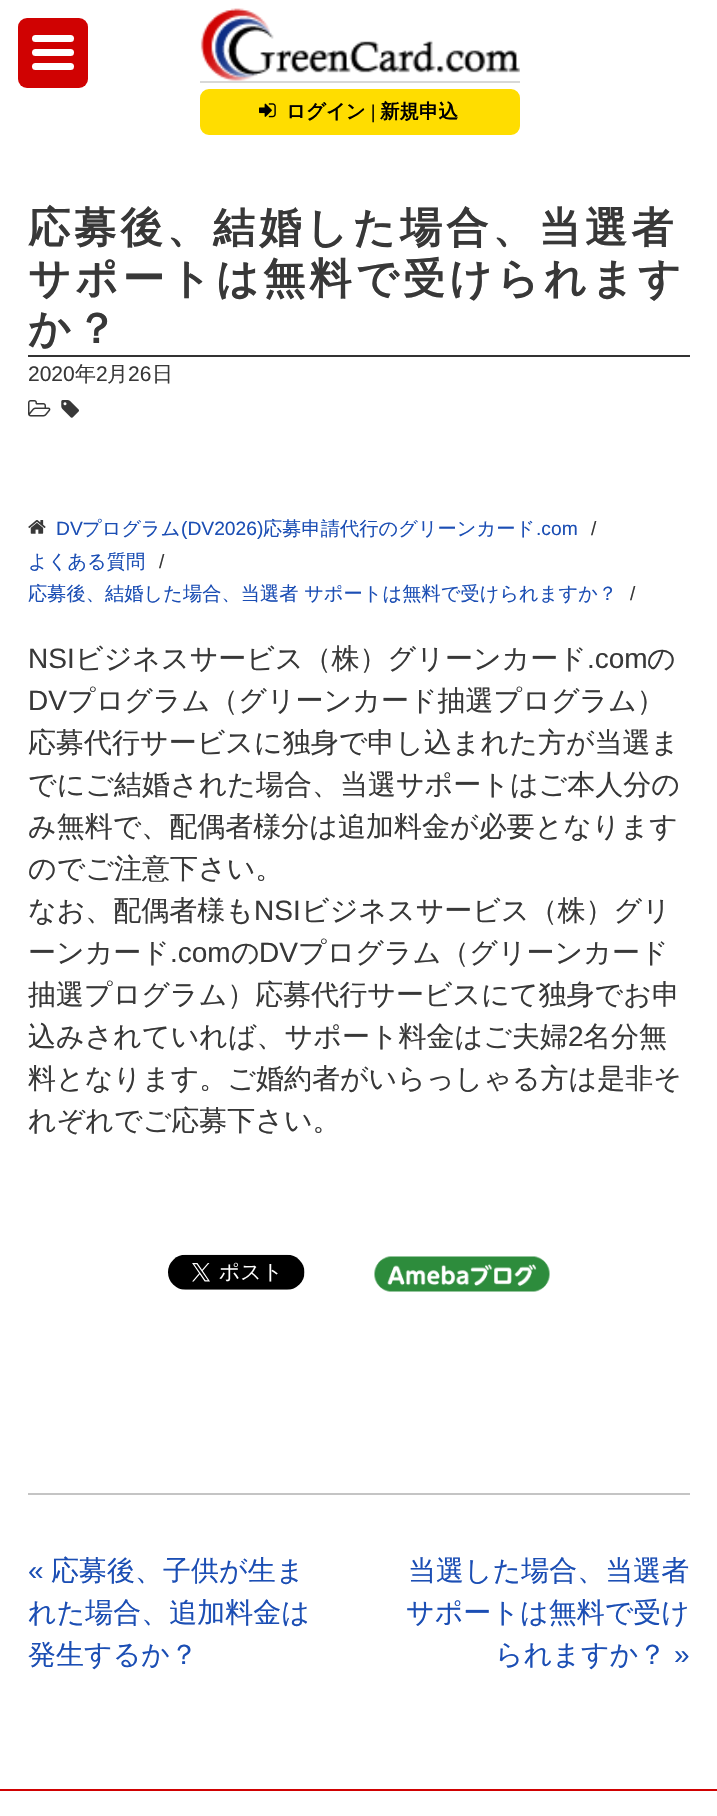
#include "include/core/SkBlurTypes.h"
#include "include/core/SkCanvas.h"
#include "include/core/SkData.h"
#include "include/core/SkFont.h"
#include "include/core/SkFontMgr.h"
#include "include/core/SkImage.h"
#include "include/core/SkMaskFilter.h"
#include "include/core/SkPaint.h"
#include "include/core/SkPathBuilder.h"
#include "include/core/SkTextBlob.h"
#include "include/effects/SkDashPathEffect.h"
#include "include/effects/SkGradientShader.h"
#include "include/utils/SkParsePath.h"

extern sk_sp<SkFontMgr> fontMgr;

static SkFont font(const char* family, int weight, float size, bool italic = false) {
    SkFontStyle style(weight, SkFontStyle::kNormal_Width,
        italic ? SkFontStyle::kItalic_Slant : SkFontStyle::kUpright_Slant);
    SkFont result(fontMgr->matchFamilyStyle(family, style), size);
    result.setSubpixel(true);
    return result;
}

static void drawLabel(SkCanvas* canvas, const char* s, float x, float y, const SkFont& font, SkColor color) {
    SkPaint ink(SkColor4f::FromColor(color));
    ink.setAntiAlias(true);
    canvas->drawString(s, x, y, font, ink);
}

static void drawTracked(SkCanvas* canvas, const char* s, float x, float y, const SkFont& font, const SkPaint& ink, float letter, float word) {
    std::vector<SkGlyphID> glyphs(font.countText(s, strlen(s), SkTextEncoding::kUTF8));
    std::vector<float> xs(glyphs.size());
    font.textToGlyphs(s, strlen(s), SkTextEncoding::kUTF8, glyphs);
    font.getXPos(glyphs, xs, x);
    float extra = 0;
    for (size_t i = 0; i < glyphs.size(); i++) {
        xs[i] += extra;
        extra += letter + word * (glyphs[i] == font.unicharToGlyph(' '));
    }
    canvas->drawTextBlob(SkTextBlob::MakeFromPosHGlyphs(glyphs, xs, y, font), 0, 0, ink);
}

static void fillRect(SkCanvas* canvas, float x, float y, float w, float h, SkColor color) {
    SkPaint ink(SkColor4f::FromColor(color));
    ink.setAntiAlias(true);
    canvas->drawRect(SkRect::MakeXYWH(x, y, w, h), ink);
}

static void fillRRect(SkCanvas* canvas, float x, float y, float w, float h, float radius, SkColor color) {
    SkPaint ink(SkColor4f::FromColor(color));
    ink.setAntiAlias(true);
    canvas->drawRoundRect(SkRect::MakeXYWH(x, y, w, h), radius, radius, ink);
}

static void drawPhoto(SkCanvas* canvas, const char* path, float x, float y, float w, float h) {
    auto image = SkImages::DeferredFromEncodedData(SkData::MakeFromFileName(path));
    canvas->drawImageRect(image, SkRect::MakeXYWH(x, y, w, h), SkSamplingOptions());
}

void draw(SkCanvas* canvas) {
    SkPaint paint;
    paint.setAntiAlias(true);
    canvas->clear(0xFFFFFFFF);
    fillRRect(canvas, 18, 18, 70, 70, 9, 0xFFD00202);
    fillRRect(canvas, 32, 35, 42, 7, 3.5f, 0xFFFFFFFF);
    fillRRect(canvas, 32, 49, 42, 7, 3.5f, 0xFFFFFFFF);
    fillRRect(canvas, 32, 63, 42, 7, 3.5f, 0xFFFFFFFF);
    fillRect(canvas, 200, 81, 320, 2, 0xFFD8D8D8);
    drawPhoto(canvas, "assets/img1.png", 200, 8, 320, 73);
    paint.setColor(0xFFFFDD00);
    canvas->drawRoundRect(SkRect::MakeXYWH(201, 90, 318, 44), 8, 8, paint);
    paint.setStroke(true);
    paint.setStrokeWidth(2);
    canvas->drawRoundRect(SkRect::MakeXYWH(201, 90, 318, 44), 8, 8, paint);
    drawPhoto(canvas, "assets/img2.png", 259, 103, 17, 15);
    SkFont font1 = font("WenQuanYi Zen Hei", 700, 19.5f);
    drawLabel(canvas, "ログイン", 286, 118, font1, 0xFF000000);
    SkFont font2 = font("Liberation Serif", 700, 19.5f);
    drawLabel(canvas, "|", 371, 118, font2, 0xFF000000);
    drawLabel(canvas, "新規申込", 380, 118, font1, 0xFF000000);
    fillRect(canvas, 28, 355, 662, 2, 0xFF333333);
    SkFont font3 = font("WenQuanYi Zen Hei", 700, 42);
    paint.setStroke(false);
    paint.setColor(0xFF383838);
    drawTracked(canvas, "応募後、結婚した場合、当選者", 28, 242, font3, paint, 4.25f, 0);
    drawTracked(canvas, "サポートは無料で受けられます", 28, 293, font3, paint, 4.25f, 0);
    drawTracked(canvas, "か？", 28, 343, font3, paint, 4.25f, 0);
    SkFont font4 = font("Liberation Sans", 400, 21);
    drawLabel(canvas, "2020", 28, 381, font4, 0xFF383838);
    SkFont font5 = font("WenQuanYi Zen Hei", 500, 21);
    drawLabel(canvas, "年", 75, 381, font5, 0xFF383838);
    drawLabel(canvas, "2", 96, 381, font4, 0xFF383838);
    drawLabel(canvas, "月", 107, 381, font5, 0xFF383838);
    drawLabel(canvas, "26", 128, 381, font4, 0xFF383838);
    drawLabel(canvas, "日", 152, 381, font5, 0xFF383838);
    drawPhoto(canvas, "assets/img3.png", 28, 400, 23, 17);
    drawPhoto(canvas, "assets/img4.png", 61, 400, 18, 18);
    drawPhoto(canvas, "assets/img5.png", 28, 520, 18, 14);
    SkFont font6 = font("Liberation Sans", 400, 19.25f);
    drawLabel(canvas, "DV", 56, 535, font6, 0xFF1B4EB4);
    SkFont font7 = font("WenQuanYi Zen Hei", 500, 19.25f);
    drawLabel(canvas, "プログラム", 82, 535, font7, 0xFF1B4EB4);
    drawLabel(canvas, "(DV2026)", 181, 535, font6, 0xFF1B4EB4);
    drawLabel(canvas, "応募申請代行のグリーンカード", 263, 535, font7, 0xFF1B4EB4);
    drawLabel(canvas, ".com", 536, 535, font6, 0xFF1B4EB4);
    drawLabel(canvas, "/", 591, 535, font6, 0xFF383838);
    drawLabel(canvas, "よくある質問", 28, 568, font7, 0xFF1B4EB4);
    drawLabel(canvas, "/", 159, 568, font6, 0xFF383838);
    drawLabel(canvas, "応募後、結婚した場合、当選者 サポートは無料で受けられますか？", 28, 600, font7, 0xFF1B4EB4);
    drawLabel(canvas, "/", 630, 600, font6, 0xFF383838);
    SkFont font8 = font("Liberation Sans", 400, 28);
    drawLabel(canvas, "NSI", 28, 668, font8, 0xFF383838);
    SkFont font9 = font("WenQuanYi Zen Hei", 500, 28);
    drawLabel(canvas, "ビジネスサービス（株）グリーンカード", 75, 668, font9, 0xFF383838);
    drawLabel(canvas, ".com", 587, 668, font8, 0xFF383838);
    drawLabel(canvas, "の", 647, 668, font9, 0xFF383838);
    drawLabel(canvas, "DV", 28, 710, font8, 0xFF383838);
    drawLabel(canvas, "プログラム（グリーンカード抽選プログラム）", 67, 710, font9, 0xFF383838);
    drawLabel(canvas, "応募代行サービスに独身で申し込まれた方が当選ま", 28, 752, font9, 0xFF383838);
    drawLabel(canvas, "でにご結婚された場合、当選サポートはご本人分の", 28, 794, font9, 0xFF383838);
    drawLabel(canvas, "み無料で、配偶者様分は追加料金が必要となります", 28, 836, font9, 0xFF383838);
    drawLabel(canvas, "のでご注意下さい。", 28, 878, font9, 0xFF383838);
    drawLabel(canvas, "なお、配偶者様も", 28, 920, font9, 0xFF383838);
    drawLabel(canvas, "NSI", 254, 920, font8, 0xFF383838);
    drawLabel(canvas, "ビジネスサービス（株）グリ", 301, 920, font9, 0xFF383838);
    drawLabel(canvas, "ーンカード", 28, 962, font9, 0xFF383838);
    drawLabel(canvas, ".com", 170, 962, font8, 0xFF383838);
    drawLabel(canvas, "の", 231, 962, font9, 0xFF383838);
    drawLabel(canvas, "DV", 259, 962, font8, 0xFF383838);
    drawLabel(canvas, "プログラム（グリーンカード", 298, 962, font9, 0xFF383838);
    drawLabel(canvas, "抽選プログラム）応募代行サービスにて独身でお申", 28, 1004, font9, 0xFF383838);
    drawLabel(canvas, "込みされていれば、サポート料金はご夫婦", 28, 1046, font9, 0xFF383838);
    drawLabel(canvas, "2", 568, 1046, font8, 0xFF383838);
    drawLabel(canvas, "名分無", 583, 1046, font9, 0xFF383838);
    drawLabel(canvas, "料となります。ご婚約者がいらっしゃる方は是非そ", 28, 1088, font9, 0xFF383838);
    drawLabel(canvas, "れぞれでご応募下さい。", 28, 1130, font9, 0xFF383838);
    drawPhoto(canvas, "assets/img6.png", 168, 1254, 137, 36);
    drawPhoto(canvas, "assets/img7.png", 374, 1256, 176, 36);
    fillRect(canvas, 28, 1493, 662, 2, 0xFFC4C4C4);
    drawLabel(canvas, "«", 28, 1580, font8, 0xFF1B4EB4);
    drawLabel(canvas, "応募後、子供が生ま", 51, 1580, font9, 0xFF1B4EB4);
    drawLabel(canvas, "れた場合、追加料金は", 28, 1622, font9, 0xFF1B4EB4);
    drawLabel(canvas, "発生するか？", 28, 1664, font9, 0xFF1B4EB4);
    drawLabel(canvas, "当選した場合、当選者", 408, 1580, font9, 0xFF1B4EB4);
    drawLabel(canvas, "サポートは無料で受け", 406, 1622, font9, 0xFF1B4EB4);
    drawLabel(canvas, "られますか？", 495, 1664, font9, 0xFF1B4EB4);
    drawLabel(canvas, "»", 674, 1664, font8, 0xFF1B4EB4);
    fillRect(canvas, 0, 1789, 717, 2, 0xFFD00202);
}
